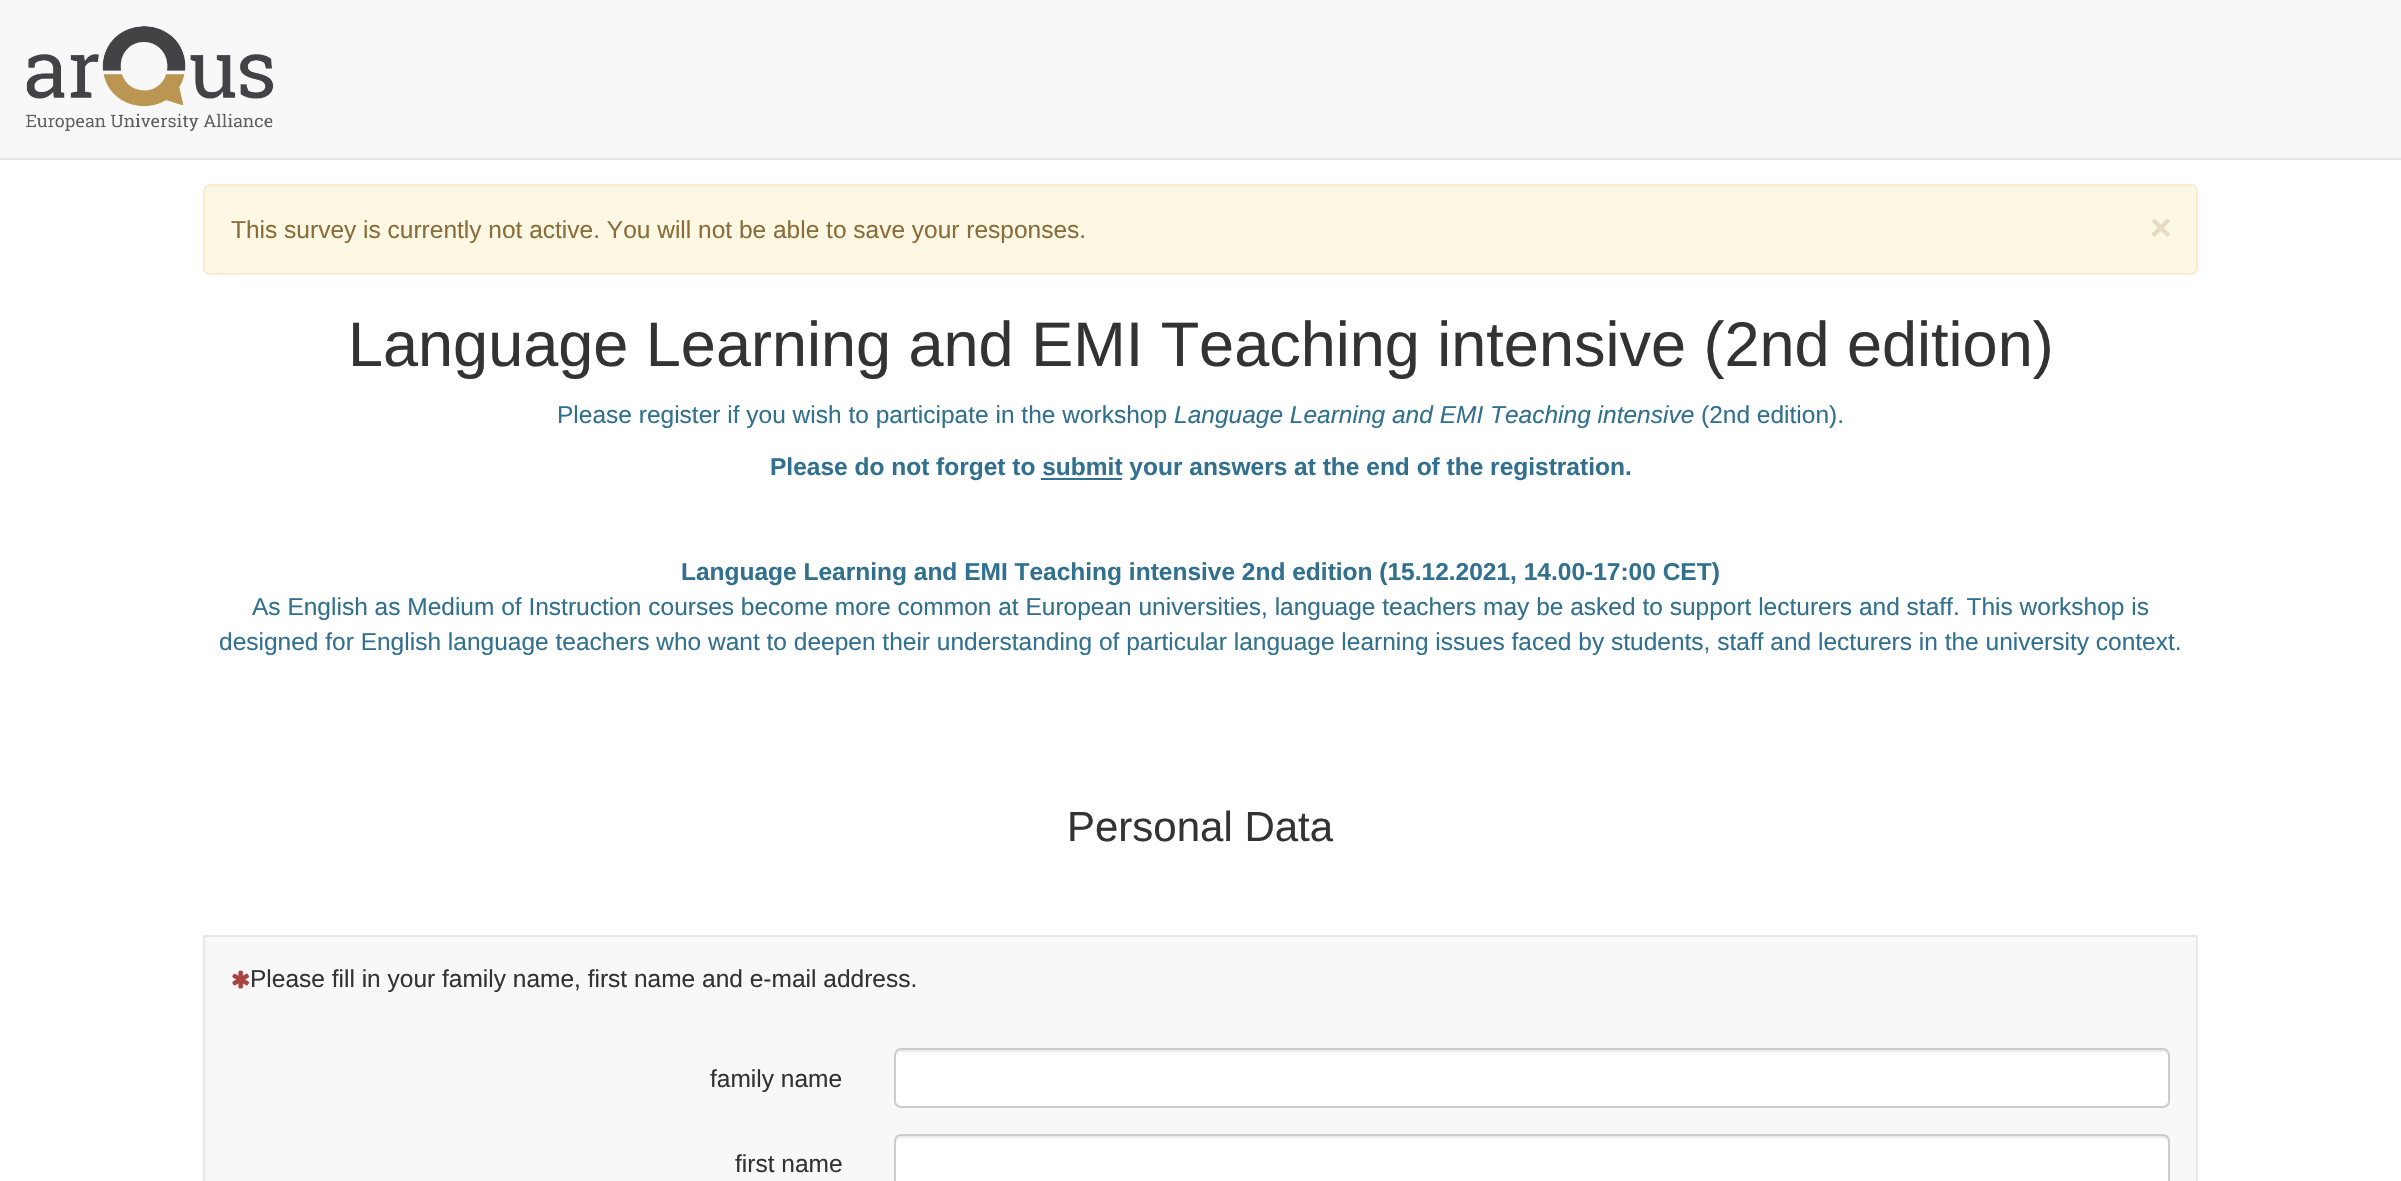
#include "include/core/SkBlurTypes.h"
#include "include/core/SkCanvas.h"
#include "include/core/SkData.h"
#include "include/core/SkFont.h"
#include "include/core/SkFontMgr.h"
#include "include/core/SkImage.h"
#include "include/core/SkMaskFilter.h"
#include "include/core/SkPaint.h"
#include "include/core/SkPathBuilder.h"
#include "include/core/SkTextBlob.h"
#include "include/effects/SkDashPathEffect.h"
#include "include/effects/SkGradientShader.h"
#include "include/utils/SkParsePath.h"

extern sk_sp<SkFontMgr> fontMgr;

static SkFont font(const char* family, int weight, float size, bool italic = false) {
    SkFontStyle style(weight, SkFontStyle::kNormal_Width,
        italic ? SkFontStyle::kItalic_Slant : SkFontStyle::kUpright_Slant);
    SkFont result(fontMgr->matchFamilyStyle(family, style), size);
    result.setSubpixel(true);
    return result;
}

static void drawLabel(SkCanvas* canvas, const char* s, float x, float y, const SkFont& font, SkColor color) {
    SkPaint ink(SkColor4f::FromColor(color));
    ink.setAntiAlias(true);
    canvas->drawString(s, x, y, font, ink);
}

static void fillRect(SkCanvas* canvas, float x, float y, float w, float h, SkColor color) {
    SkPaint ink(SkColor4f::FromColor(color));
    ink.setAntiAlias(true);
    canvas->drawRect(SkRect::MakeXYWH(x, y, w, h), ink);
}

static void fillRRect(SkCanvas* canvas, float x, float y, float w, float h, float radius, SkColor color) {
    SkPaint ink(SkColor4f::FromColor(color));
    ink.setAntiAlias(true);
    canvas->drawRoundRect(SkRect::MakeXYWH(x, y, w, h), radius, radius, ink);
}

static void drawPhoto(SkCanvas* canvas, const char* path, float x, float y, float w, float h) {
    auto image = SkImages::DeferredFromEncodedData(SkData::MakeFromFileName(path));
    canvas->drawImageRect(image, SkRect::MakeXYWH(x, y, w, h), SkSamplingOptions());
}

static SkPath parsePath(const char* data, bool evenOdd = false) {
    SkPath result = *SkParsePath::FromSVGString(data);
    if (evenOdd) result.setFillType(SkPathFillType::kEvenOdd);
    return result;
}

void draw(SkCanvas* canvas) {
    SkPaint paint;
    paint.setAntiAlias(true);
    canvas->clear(0xFFFFFFFF);
    fillRect(canvas, 0, 0, 2401, 158, 0xFFF8F8F8);
    fillRect(canvas, 0, 158, 2401, 2, 0xFFE7E7E7);
    drawPhoto(canvas, "assets/img1.png", 26, 26, 248, 105);
    paint.setColor(0xFFFCF8E3);
    canvas->drawRoundRect(SkRect::MakeXYWH(204, 185, 1993, 89), 6, 6, paint);
    paint.setStroke(true);
    paint.setStrokeWidth(2);
    paint.setColor(0xFFFAEBCC);
    canvas->drawRoundRect(SkRect::MakeXYWH(204, 185, 1993, 89), 6, 6, paint);
    SkFont font1 = font("Liberation Sans", 400, 24.5f);
    drawLabel(canvas, "This survey is currently not active. You will not be able to save your responses.", 231, 238, font1, 0xFF8A6D3B);
    SkFont font2 = font("Liberation Sans", 700, 37);
    drawLabel(canvas, "×", 2150, 240, font2, 0xFFE5DCC1);
    SkFont font3 = font("Liberation Sans", 400, 63);
    drawLabel(canvas, "Language Learning and EMI Teaching intensive (2nd edition)", 348, 366, font3, 0xFF333333);
    drawLabel(canvas, "Please register if you wish to participate in the workshop", 557, 423, font1, 0xFF31708F);
    SkFont font4 = font("Liberation Sans", 400, 24.5f, true);
    drawLabel(canvas, "Language Learning and EMI Teaching intensive", 1174, 423, font4, 0xFF31708F);
    drawLabel(canvas, "(2nd edition).", 1701, 423, font1, 0xFF31708F);
    SkFont font5 = font("Liberation Sans", 700, 24.5f);
    drawLabel(canvas, "Please do not forget to submit your answers at the end of the registration.", 770, 475, font5, 0xFF31708F);
    fillRect(canvas, 1041, 478, 81, 2, 0xFF31708F);
    drawLabel(canvas, "Language Learning and EMI Teaching intensive 2nd edition (15.12.2021, 14.00-17:00 CET)", 681, 580, font5, 0xFF31708F);
    drawLabel(canvas, "As English as Medium of Instruction courses become more common at European universities, language teachers may be asked to support lecturers and staff. This workshop is", 252, 615, font1, 0xFF31708F);
    drawLabel(canvas, "designed for English language teachers who want to deepen their understanding of particular language learning issues faced by students, staff and lecturers in the university context.", 219, 650, font1, 0xFF31708F);
    SkFont font6 = font("Liberation Sans", 400, 42);
    drawLabel(canvas, "Personal Data", 1067, 841, font6, 0xFF333333);
    paint.setStroke(false);
    paint.setColor(0xFFF8F8F8);
    canvas->drawRect(SkRect::MakeXYWH(204, 936, 1993, 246), paint);
    paint.setStroke(true);
    paint.setColor(0xFFE7E7E7);
    canvas->drawRect(SkRect::MakeXYWH(204, 936, 1993, 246), paint);
    drawPhoto(canvas, "assets/img2.png", 232, 970, 17, 19);
    drawLabel(canvas, "Please fill in your family name, first name and e-mail address.", 250, 987, font1, 0xFF333333);
    drawLabel(canvas, "family name", 710, 1087, font1, 0xFF333333);
    fillRRect(canvas, 894, 1048, 1276, 60, 7, 0xFFFFFFFF);
    paint.setStroke(false);
    paint.setColor(0xFFECECEC);
    canvas->drawPath(parsePath("M901 1052H2163C2166 1052 2168 1054 2168 1057V1055C2168 1052 2166 1050 2163 1050H901C898 1050 896 1052 896 1055V1057C896 1054 898 1052 901 1052Z"), paint);
    paint.setStroke(true);
    paint.setColor(0xFFCCCCCC);
    canvas->drawRoundRect(SkRect::MakeXYWH(895, 1049, 1274, 58), 6, 6, paint);
    drawLabel(canvas, "first name", 735, 1172, font1, 0xFF333333);
    fillRRect(canvas, 894, 1134, 1276, 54, 7, 0xFFFFFFFF);
    paint.setStroke(false);
    paint.setColor(0xFFECECEC);
    canvas->drawPath(parsePath("M901 1138H2163C2166 1138 2168 1140 2168 1143V1141C2168 1138 2166 1136 2163 1136H901C898 1136 896 1138 896 1141V1143C896 1140 898 1138 901 1138Z"), paint);
    paint.setStroke(true);
    paint.setColor(0xFFCCCCCC);
    canvas->drawRoundRect(SkRect::MakeXYWH(895, 1135, 1274, 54), 6, 6, paint);
}
